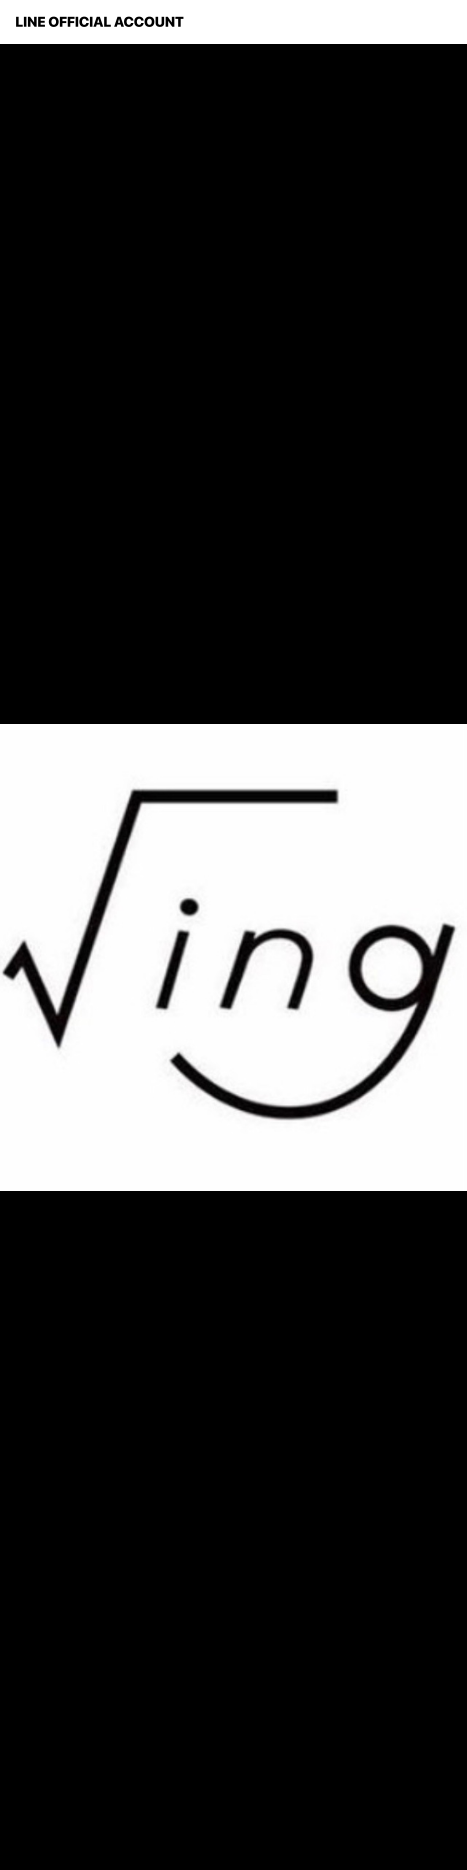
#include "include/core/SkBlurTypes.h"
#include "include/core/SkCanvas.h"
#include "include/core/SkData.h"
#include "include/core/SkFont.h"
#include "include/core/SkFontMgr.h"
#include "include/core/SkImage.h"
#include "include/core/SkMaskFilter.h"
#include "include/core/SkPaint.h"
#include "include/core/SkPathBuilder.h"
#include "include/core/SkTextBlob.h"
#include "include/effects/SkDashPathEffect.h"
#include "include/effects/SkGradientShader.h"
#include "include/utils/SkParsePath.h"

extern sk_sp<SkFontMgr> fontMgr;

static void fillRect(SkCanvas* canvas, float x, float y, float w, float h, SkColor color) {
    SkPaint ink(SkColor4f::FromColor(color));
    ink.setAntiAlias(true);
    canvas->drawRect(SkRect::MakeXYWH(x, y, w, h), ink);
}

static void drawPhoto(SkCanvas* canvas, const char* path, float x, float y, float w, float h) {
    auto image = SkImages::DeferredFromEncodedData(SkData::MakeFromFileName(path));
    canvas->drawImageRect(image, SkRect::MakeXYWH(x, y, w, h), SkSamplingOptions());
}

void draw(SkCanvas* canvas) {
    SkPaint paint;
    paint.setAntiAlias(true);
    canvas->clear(0xFF000000);
    fillRect(canvas, 0, 0, 467, 44, 0xFFFFFFFF);
    drawPhoto(canvas, "assets/img1.png", 16, 16, 168, 11);
    drawPhoto(canvas, "assets/img2.png", 0, 724, 467, 467);
}
